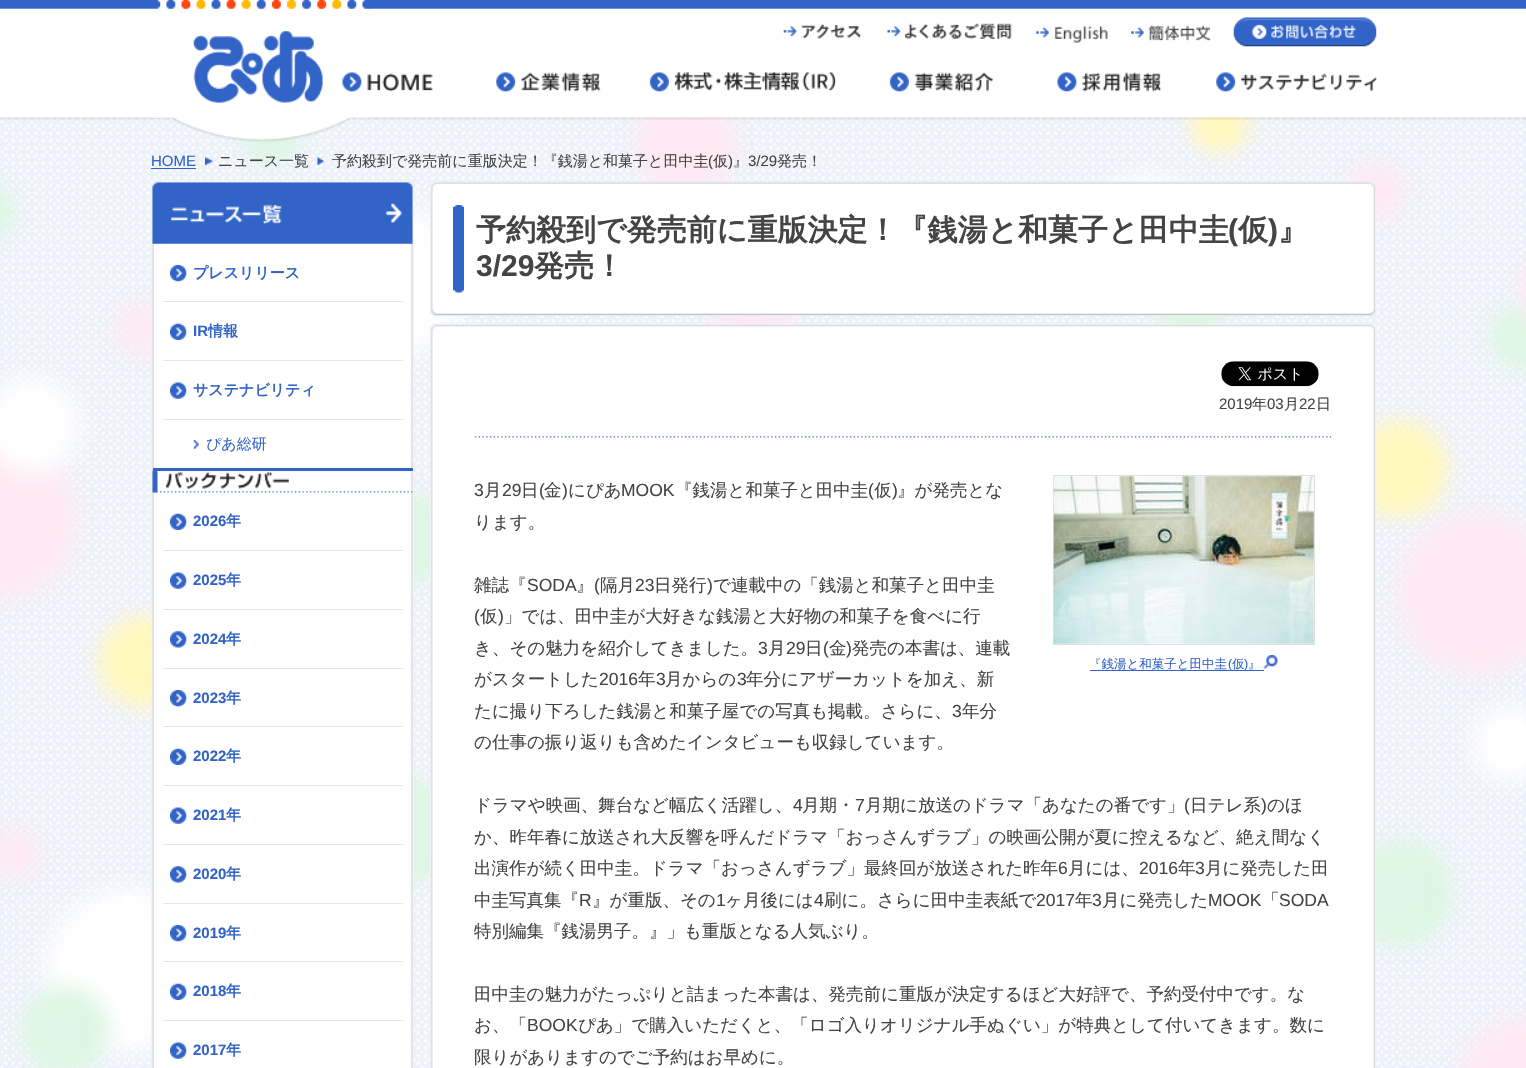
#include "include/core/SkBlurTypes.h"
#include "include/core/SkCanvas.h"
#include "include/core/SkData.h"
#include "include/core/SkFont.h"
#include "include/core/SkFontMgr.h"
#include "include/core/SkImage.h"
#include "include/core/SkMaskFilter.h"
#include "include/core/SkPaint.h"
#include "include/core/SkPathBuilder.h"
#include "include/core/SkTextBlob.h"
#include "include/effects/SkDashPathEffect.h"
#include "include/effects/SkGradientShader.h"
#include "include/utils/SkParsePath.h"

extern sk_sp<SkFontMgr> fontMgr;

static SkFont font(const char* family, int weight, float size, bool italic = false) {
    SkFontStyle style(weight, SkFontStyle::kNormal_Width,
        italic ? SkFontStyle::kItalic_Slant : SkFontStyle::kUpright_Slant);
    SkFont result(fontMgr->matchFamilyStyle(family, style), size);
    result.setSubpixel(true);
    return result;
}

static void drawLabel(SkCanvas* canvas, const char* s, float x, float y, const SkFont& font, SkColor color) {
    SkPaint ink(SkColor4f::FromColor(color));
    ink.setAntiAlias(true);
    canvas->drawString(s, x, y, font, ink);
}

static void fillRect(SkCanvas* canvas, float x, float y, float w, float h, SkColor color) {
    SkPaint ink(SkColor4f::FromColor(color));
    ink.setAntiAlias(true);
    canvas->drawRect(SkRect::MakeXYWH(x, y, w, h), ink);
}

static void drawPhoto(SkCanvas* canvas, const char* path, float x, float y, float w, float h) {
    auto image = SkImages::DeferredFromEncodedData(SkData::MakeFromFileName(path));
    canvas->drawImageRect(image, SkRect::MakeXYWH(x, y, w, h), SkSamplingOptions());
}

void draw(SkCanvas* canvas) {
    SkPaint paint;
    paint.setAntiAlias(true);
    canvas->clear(0xFFFFFFFF);
    drawPhoto(canvas, "assets/img1.png", 0, 117, 1526, 951);
    drawPhoto(canvas, "assets/img2.png", 0, 117, 1526, 951);
    drawPhoto(canvas, "assets/img3.png", 0, 0, 1526, 120);
    drawPhoto(canvas, "assets/img4.png", 151, 0, 220, 142);
    drawPhoto(canvas, "assets/img5.png", 193, 31, 130, 72);
    drawPhoto(canvas, "assets/img6.png", 783, 23, 79, 16);
    drawPhoto(canvas, "assets/img7.png", 887, 23, 125, 17);
    drawPhoto(canvas, "assets/img8.png", 1036, 26, 72, 17);
    drawPhoto(canvas, "assets/img9.png", 1131, 25, 79, 16);
    drawPhoto(canvas, "assets/img10.png", 1233, 17, 144, 30);
    drawPhoto(canvas, "assets/img11.png", 342, 72, 91, 20);
    drawPhoto(canvas, "assets/img12.png", 496, 72, 105, 20);
    drawPhoto(canvas, "assets/img13.png", 649, 72, 187, 20);
    drawPhoto(canvas, "assets/img14.png", 889, 72, 105, 20);
    drawPhoto(canvas, "assets/img15.png", 1057, 72, 105, 20);
    drawPhoto(canvas, "assets/img16.png", 1216, 72, 161, 20);
    SkFont font1 = font("Liberation Sans", 400, 15);
    drawLabel(canvas, "HOME", 151, 166, font1, 0xFF3264C6);
    fillRect(canvas, 151, 168, 45, 1, 0xFF3264C6);
    drawPhoto(canvas, "assets/img17.png", 205, 157, 8, 8);
    SkFont font2 = font("WenQuanYi Zen Hei", 500, 15);
    drawLabel(canvas, "ニュース一覧", 218, 166, font2, 0xFF444444);
    drawPhoto(canvas, "assets/img18.png", 317, 157, 7, 8);
    drawLabel(canvas, "予約殺到で発売前に重版決定！『銭湯と和菓子と田中圭", 332, 166, font2, 0xFF444444);
    drawLabel(canvas, "(", 708, 166, font1, 0xFF444444);
    drawLabel(canvas, "仮", 713, 166, font2, 0xFF444444);
    drawLabel(canvas, ")", 728, 166, font1, 0xFF444444);
    drawLabel(canvas, "』", 733, 166, font2, 0xFF444444);
    drawLabel(canvas, "3/29", 748, 166, font1, 0xFF444444);
    drawLabel(canvas, "発売！", 777, 166, font2, 0xFF444444);
    drawPhoto(canvas, "assets/img19.png", 152, 181, 262, 9);
    drawPhoto(canvas, "assets/img20.png", 151, 190, 263, 878);
    drawPhoto(canvas, "assets/img21.png", 152, 182, 261, 62);
    drawPhoto(canvas, "assets/img22.png", 170, 265, 17, 17);
    SkFont font3 = font("WenQuanYi Zen Hei", 700, 15);
    drawLabel(canvas, "プレスリリース", 193, 278, font3, 0xFF3264C6);
    fillRect(canvas, 163, 301, 240, 1, 0xFFE5E8EB);
    drawPhoto(canvas, "assets/img23.png", 170, 323, 17, 17);
    SkFont font4 = font("Liberation Sans", 700, 15);
    drawLabel(canvas, "IR", 193, 336, font4, 0xFF3264C6);
    drawLabel(canvas, "情報", 208, 336, font3, 0xFF3264C6);
    fillRect(canvas, 163, 360, 240, 1, 0xFFE5E8EB);
    drawPhoto(canvas, "assets/img24.png", 170, 382, 17, 17);
    drawLabel(canvas, "サステナビリティ", 193, 395, font3, 0xFF3264C6);
    fillRect(canvas, 163, 419, 240, 1, 0xFFE5E8EB);
    drawPhoto(canvas, "assets/img25.png", 193, 440, 6, 9);
    drawLabel(canvas, "ぴあ総研", 206, 449, font2, 0xFF3264C6);
    drawPhoto(canvas, "assets/img26.png", 152, 491, 261, 2);
    fillRect(canvas, 153, 468, 260, 3, 0xFF3264C8);
    drawPhoto(canvas, "assets/img27.png", 152, 470, 137, 23);
    drawPhoto(canvas, "assets/img23.png", 170, 513, 17, 17);
    drawLabel(canvas, "2026", 193, 526, font4, 0xFF3264C6);
    drawLabel(canvas, "年", 226, 526, font3, 0xFF3264C6);
    fillRect(canvas, 163, 550, 240, 1, 0xFFE5E8EB);
    drawPhoto(canvas, "assets/img24.png", 170, 572, 17, 17);
    drawLabel(canvas, "2025", 193, 585, font4, 0xFF3264C6);
    drawLabel(canvas, "年", 226, 585, font3, 0xFF3264C6);
    fillRect(canvas, 163, 609, 240, 1, 0xFFE5E8EB);
    drawPhoto(canvas, "assets/img28.png", 170, 631, 17, 17);
    drawLabel(canvas, "2024", 193, 644, font4, 0xFF3264C6);
    drawLabel(canvas, "年", 226, 644, font3, 0xFF3264C6);
    fillRect(canvas, 163, 668, 240, 1, 0xFFE5E8EB);
    drawPhoto(canvas, "assets/img22.png", 170, 690, 17, 17);
    drawLabel(canvas, "2023", 193, 703, font4, 0xFF3264C6);
    drawLabel(canvas, "年", 226, 703, font3, 0xFF3264C6);
    fillRect(canvas, 163, 726, 240, 1, 0xFFE5E8EB);
    drawPhoto(canvas, "assets/img23.png", 170, 748, 17, 17);
    drawLabel(canvas, "2022", 193, 761, font4, 0xFF3264C6);
    drawLabel(canvas, "年", 226, 761, font3, 0xFF3264C6);
    fillRect(canvas, 163, 785, 240, 1, 0xFFE5E8EB);
    drawPhoto(canvas, "assets/img24.png", 170, 807, 17, 17);
    drawLabel(canvas, "2021", 193, 820, font4, 0xFF3264C6);
    drawLabel(canvas, "年", 226, 820, font3, 0xFF3264C6);
    fillRect(canvas, 163, 844, 240, 1, 0xFFE5E8EB);
    drawPhoto(canvas, "assets/img28.png", 170, 866, 17, 17);
    drawLabel(canvas, "2020", 193, 879, font4, 0xFF3264C6);
    drawLabel(canvas, "年", 226, 879, font3, 0xFF3264C6);
    fillRect(canvas, 163, 903, 240, 1, 0xFFE5E8EB);
    drawPhoto(canvas, "assets/img22.png", 170, 925, 17, 17);
    drawLabel(canvas, "2019", 193, 938, font4, 0xFF3264C6);
    drawLabel(canvas, "年", 226, 938, font3, 0xFF3264C6);
    fillRect(canvas, 163, 961, 240, 1, 0xFFE5E8EB);
    drawPhoto(canvas, "assets/img23.png", 170, 983, 17, 17);
    drawLabel(canvas, "2018", 193, 996, font4, 0xFF3264C6);
    drawLabel(canvas, "年", 226, 996, font3, 0xFF3264C6);
    fillRect(canvas, 163, 1020, 240, 1, 0xFFE5E8EB);
    drawPhoto(canvas, "assets/img24.png", 170, 1042, 17, 17);
    drawLabel(canvas, "2017", 193, 1055, font4, 0xFF3264C6);
    drawLabel(canvas, "年", 226, 1055, font3, 0xFF3264C6);
    drawPhoto(canvas, "assets/img29.png", 430, 181, 946, 9);
    drawPhoto(canvas, "assets/img30.png", 430, 307, 946, 10);
    drawPhoto(canvas, "assets/img31.png", 430, 190, 946, 118);
    drawPhoto(canvas, "assets/img32.png", 453, 205, 11, 2);
    drawPhoto(canvas, "assets/img33.png", 453, 290, 11, 3);
    fillRect(canvas, 453, 207, 11, 83, 0xFF3264C8);
    SkFont font5 = font("WenQuanYi Zen Hei", 700, 30);
    drawLabel(canvas, "予約殺到で発売前に重版決定！『銭湯と和菓子と田中圭", 476, 240, font5, 0xFF444444);
    SkFont font6 = font("Liberation Sans", 700, 30);
    drawLabel(canvas, "(", 1228, 240, font6, 0xFF444444);
    drawLabel(canvas, "仮", 1238, 240, font5, 0xFF444444);
    drawLabel(canvas, ")", 1268, 240, font6, 0xFF444444);
    drawLabel(canvas, "』", 1278, 240, font5, 0xFF444444);
    drawLabel(canvas, "3/29", 476, 276, font6, 0xFF444444);
    drawLabel(canvas, "発売！", 534, 276, font5, 0xFF444444);
    drawPhoto(canvas, "assets/img34.png", 430, 323, 946, 10);
    drawPhoto(canvas, "assets/img35.png", 430, 332, 947, 736);
    drawPhoto(canvas, "assets/img36.png", 475, 436, 857, 2);
    drawPhoto(canvas, "assets/img37.png", 1221, 361, 98, 26);
    drawLabel(canvas, "2019", 1219, 409, font1, 0xFF444444);
    drawLabel(canvas, "年", 1252, 409, font2, 0xFF444444);
    drawLabel(canvas, "03", 1267, 409, font1, 0xFF444444);
    drawLabel(canvas, "月", 1284, 409, font2, 0xFF444444);
    drawLabel(canvas, "22", 1299, 409, font1, 0xFF444444);
    drawLabel(canvas, "日", 1316, 409, font2, 0xFF444444);
    SkFont font7 = font("Liberation Sans", 400, 17.5f);
    drawLabel(canvas, "3", 474, 496, font7, 0xFF444444);
    SkFont font8 = font("WenQuanYi Zen Hei", 500, 17.5f);
    drawLabel(canvas, "月", 484, 496, font8, 0xFF444444);
    drawLabel(canvas, "29", 502, 496, font7, 0xFF444444);
    drawLabel(canvas, "日", 521, 496, font8, 0xFF444444);
    drawLabel(canvas, "(", 539, 496, font7, 0xFF444444);
    drawLabel(canvas, "金", 544, 496, font8, 0xFF444444);
    drawLabel(canvas, ")", 562, 496, font7, 0xFF444444);
    drawLabel(canvas, "にぴあ", 568, 496, font8, 0xFF444444);
    drawLabel(canvas, "MOOK", 621, 496, font7, 0xFF444444);
    drawLabel(canvas, "『銭湯と和菓子と田中圭", 675, 496, font8, 0xFF444444);
    drawLabel(canvas, "(", 868, 496, font7, 0xFF444444);
    drawLabel(canvas, "仮", 874, 496, font8, 0xFF444444);
    drawLabel(canvas, ")", 892, 496, font7, 0xFF444444);
    drawLabel(canvas, "』が発売とな", 897, 496, font8, 0xFF444444);
    drawLabel(canvas, "ります。", 474, 528, font8, 0xFF444444);
    drawLabel(canvas, "雑誌『", 474, 591, font8, 0xFF444444);
    drawLabel(canvas, "SODA", 527, 591, font7, 0xFF444444);
    drawLabel(canvas, "』", 576, 591, font8, 0xFF444444);
    drawLabel(canvas, "(", 594, 591, font7, 0xFF444444);
    drawLabel(canvas, "隔月", 600, 591, font8, 0xFF444444);
    drawLabel(canvas, "23", 635, 591, font7, 0xFF444444);
    drawLabel(canvas, "日発行", 654, 591, font8, 0xFF444444);
    drawLabel(canvas, ")", 707, 591, font7, 0xFF444444);
    drawLabel(canvas, "で連載中の「銭湯と和菓子と田中圭", 713, 591, font8, 0xFF444444);
    drawLabel(canvas, "(", 474, 622, font7, 0xFF444444);
    drawLabel(canvas, "仮", 480, 622, font8, 0xFF444444);
    drawLabel(canvas, ")", 498, 622, font7, 0xFF444444);
    drawLabel(canvas, "」では、田中圭が大好きな銭湯と大好物の和菓子を食べに行", 504, 622, font8, 0xFF444444);
    drawLabel(canvas, "き、その魅力を紹介してきました。", 474, 654, font8, 0xFF444444);
    drawLabel(canvas, "3", 758, 654, font7, 0xFF444444);
    drawLabel(canvas, "月", 768, 654, font8, 0xFF444444);
    drawLabel(canvas, "29", 786, 654, font7, 0xFF444444);
    drawLabel(canvas, "日", 805, 654, font8, 0xFF444444);
    drawLabel(canvas, "(", 823, 654, font7, 0xFF444444);
    drawLabel(canvas, "金", 829, 654, font8, 0xFF444444);
    drawLabel(canvas, ")", 846, 654, font7, 0xFF444444);
    drawLabel(canvas, "発売の本書は、連載", 852, 654, font8, 0xFF444444);
    drawLabel(canvas, "がスタートした", 474, 685, font8, 0xFF444444);
    drawLabel(canvas, "2016", 599, 685, font7, 0xFF444444);
    drawLabel(canvas, "年", 638, 685, font8, 0xFF444444);
    drawLabel(canvas, "3", 656, 685, font7, 0xFF444444);
    drawLabel(canvas, "月からの", 665, 685, font8, 0xFF444444);
    drawLabel(canvas, "3", 737, 685, font7, 0xFF444444);
    drawLabel(canvas, "年分にアザーカットを加え、新", 746, 685, font8, 0xFF444444);
    drawLabel(canvas, "たに撮り下ろした銭湯と和菓子屋での写真も掲載。さらに、", 474, 717, font8, 0xFF444444);
    drawLabel(canvas, "3", 952, 717, font7, 0xFF444444);
    drawLabel(canvas, "年分", 962, 717, font8, 0xFF444444);
    drawLabel(canvas, "の仕事の振り返りも含めたインタビューも収録しています。", 474, 748, font8, 0xFF444444);
    drawLabel(canvas, "ドラマや映画、舞台など幅広く活躍し、", 474, 811, font8, 0xFF444444);
    drawLabel(canvas, "4", 793, 811, font7, 0xFF444444);
    drawLabel(canvas, "月期・", 802, 811, font8, 0xFF444444);
    drawLabel(canvas, "7", 855, 811, font7, 0xFF444444);
    drawLabel(canvas, "月期に放送のドラマ「あなたの番です」", 865, 811, font8, 0xFF444444);
    drawLabel(canvas, "(", 1184, 811, font7, 0xFF444444);
    drawLabel(canvas, "日テレ系", 1190, 811, font8, 0xFF444444);
    drawLabel(canvas, ")", 1261, 811, font7, 0xFF444444);
    drawLabel(canvas, "のほ", 1267, 811, font8, 0xFF444444);
    drawLabel(canvas, "か、昨年春に放送され大反響を呼んだドラマ「おっさんずラブ」の映画公開が夏に控えるなど、絶え間なく", 474, 843, font8, 0xFF444444);
    drawLabel(canvas, "出演作が続く田中圭。ドラマ「おっさんずラブ」最終回が放送された昨年", 474, 874, font8, 0xFF444444);
    drawLabel(canvas, "6", 1058, 874, font7, 0xFF444444);
    drawLabel(canvas, "月には、", 1068, 874, font8, 0xFF444444);
    drawLabel(canvas, "2016", 1139, 874, font7, 0xFF444444);
    drawLabel(canvas, "年", 1178, 874, font8, 0xFF444444);
    drawLabel(canvas, "3", 1195, 874, font7, 0xFF444444);
    drawLabel(canvas, "月に発売した田", 1205, 874, font8, 0xFF444444);
    drawLabel(canvas, "中圭写真集『", 474, 906, font8, 0xFF444444);
    drawLabel(canvas, "R", 579, 906, font7, 0xFF444444);
    drawLabel(canvas, "』が重版、その", 592, 906, font8, 0xFF444444);
    drawLabel(canvas, "1", 716, 906, font7, 0xFF444444);
    drawLabel(canvas, "ヶ月後には", 725, 906, font8, 0xFF444444);
    drawLabel(canvas, "4", 814, 906, font7, 0xFF444444);
    drawLabel(canvas, "刷に。さらに田中圭表紙で", 824, 906, font8, 0xFF444444);
    drawLabel(canvas, "2017", 1036, 906, font7, 0xFF444444);
    drawLabel(canvas, "年", 1075, 906, font8, 0xFF444444);
    drawLabel(canvas, "3", 1092, 906, font7, 0xFF444444);
    drawLabel(canvas, "月に発売した", 1102, 906, font8, 0xFF444444);
    drawLabel(canvas, "MOOK", 1208, 906, font7, 0xFF444444);
    drawLabel(canvas, "「", 1262, 906, font8, 0xFF444444);
    drawLabel(canvas, "SODA", 1279, 906, font7, 0xFF444444);
    drawLabel(canvas, "特別編集『銭湯男子。』」も重版となる人気ぶり。", 474, 937, font8, 0xFF444444);
    drawLabel(canvas, "田中圭の魅力がたっぷりと詰まった本書は、発売前に重版が決定するほど大好評で、予約受付中です。な", 474, 1000, font8, 0xFF444444);
    drawLabel(canvas, "お、「", 474, 1031, font8, 0xFF444444);
    drawLabel(canvas, "BOOK", 527, 1031, font7, 0xFF444444);
    drawLabel(canvas, "ぴあ」で購入いただくと、「ロゴ入りオリジナル手ぬぐい」が特典として付いてきます。数に", 578, 1031, font8, 0xFF444444);
    drawLabel(canvas, "限りがありますのでご予約はお早めに。", 474, 1063, font8, 0xFF444444);
    paint.setStroke(true);
    paint.setStrokeWidth(1);
    paint.setColor(0xFFE0DFDF);
    canvas->drawRect(SkRect::MakeXYWH(1053.5f, 475.5f, 261, 169), paint);
    drawPhoto(canvas, "assets/img38.png", 1053, 476, 261, 168);
    SkFont font9 = font("WenQuanYi Zen Hei", 500, 12.5f);
    drawLabel(canvas, "『銭湯と和菓子と田中圭", 1089, 668, font9, 0xFF3264C6);
    fillRect(canvas, 1090, 670, 174, 1, 0xFF3264C6);
    SkFont font10 = font("Liberation Sans", 400, 12.5f);
    drawLabel(canvas, "(", 1228, 668, font10, 0xFF3264C6);
    drawLabel(canvas, "仮", 1232, 668, font9, 0xFF3264C6);
    drawLabel(canvas, ")", 1244, 668, font10, 0xFF3264C6);
    drawLabel(canvas, "』", 1248, 668, font9, 0xFF3264C6);
    drawPhoto(canvas, "assets/img39.png", 1263, 655, 15, 14);
}
